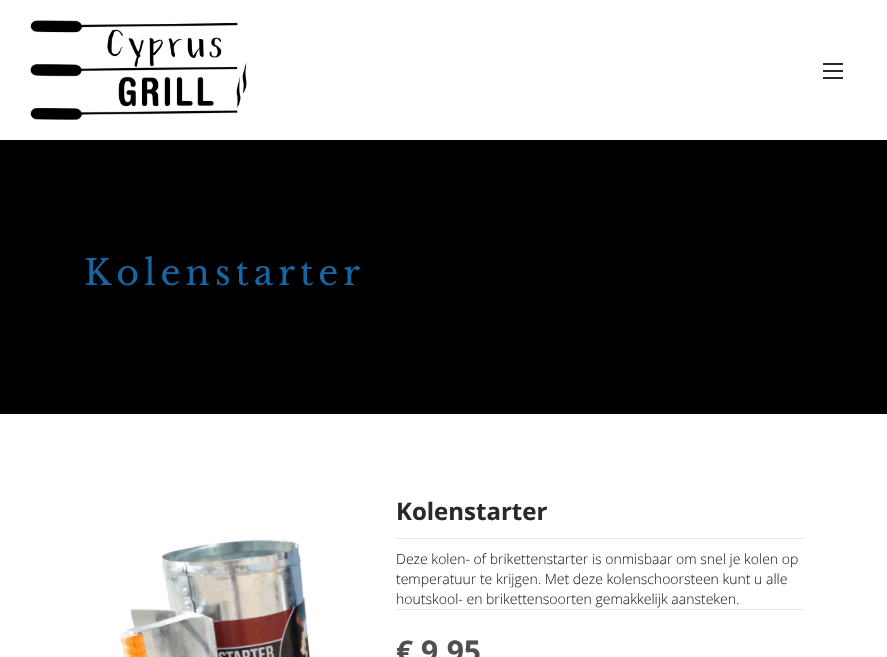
#include "include/core/SkBlurTypes.h"
#include "include/core/SkCanvas.h"
#include "include/core/SkData.h"
#include "include/core/SkFont.h"
#include "include/core/SkFontMgr.h"
#include "include/core/SkImage.h"
#include "include/core/SkMaskFilter.h"
#include "include/core/SkPaint.h"
#include "include/core/SkPathBuilder.h"
#include "include/core/SkTextBlob.h"
#include "include/effects/SkDashPathEffect.h"
#include "include/effects/SkGradientShader.h"
#include "include/utils/SkParsePath.h"

extern sk_sp<SkFontMgr> fontMgr;

static SkFont font(const char* family, int weight, float size, bool italic = false) {
    SkFontStyle style(weight, SkFontStyle::kNormal_Width,
        italic ? SkFontStyle::kItalic_Slant : SkFontStyle::kUpright_Slant);
    SkFont result(fontMgr->matchFamilyStyle(family, style), size);
    result.setSubpixel(true);
    return result;
}

static void drawLabel(SkCanvas* canvas, const char* s, float x, float y, const SkFont& font, SkColor color) {
    SkPaint ink(SkColor4f::FromColor(color));
    ink.setAntiAlias(true);
    canvas->drawString(s, x, y, font, ink);
}

static void drawTracked(SkCanvas* canvas, const char* s, float x, float y, const SkFont& font, const SkPaint& ink, float letter, float word) {
    std::vector<SkGlyphID> glyphs(font.countText(s, strlen(s), SkTextEncoding::kUTF8));
    std::vector<float> xs(glyphs.size());
    font.textToGlyphs(s, strlen(s), SkTextEncoding::kUTF8, glyphs);
    font.getXPos(glyphs, xs, x);
    float extra = 0;
    for (size_t i = 0; i < glyphs.size(); i++) {
        xs[i] += extra;
        extra += letter + word * (glyphs[i] == font.unicharToGlyph(' '));
    }
    canvas->drawTextBlob(SkTextBlob::MakeFromPosHGlyphs(glyphs, xs, y, font), 0, 0, ink);
}

static void fillRect(SkCanvas* canvas, float x, float y, float w, float h, SkColor color) {
    SkPaint ink(SkColor4f::FromColor(color));
    ink.setAntiAlias(true);
    canvas->drawRect(SkRect::MakeXYWH(x, y, w, h), ink);
}

static void drawPhoto(SkCanvas* canvas, const char* path, float x, float y, float w, float h) {
    auto image = SkImages::DeferredFromEncodedData(SkData::MakeFromFileName(path));
    canvas->drawImageRect(image, SkRect::MakeXYWH(x, y, w, h), SkSamplingOptions());
}

void draw(SkCanvas* canvas) {
    SkPaint paint;
    paint.setAntiAlias(true);
    canvas->clear(0xFFFFFFFF);
    drawPhoto(canvas, "assets/img1.png", 30, 20, 217, 100);
    fillRect(canvas, 823, 63, 20, 2, 0xFF292929);
    fillRect(canvas, 823, 70, 20, 2, 0xFF292929);
    fillRect(canvas, 823, 77, 20, 2, 0xFF292929);
    fillRect(canvas, 0, 140, 887, 274, 0xFF000000);
    SkFont font1 = font("Libre Baskerville", 400, 35);
    paint.setColor(0xFF1666A3);
    drawTracked(canvas, "Kolenstarter", 84, 285, font1, paint, 5, 0);
    drawPhoto(canvas, "assets/img2.png", 117, 538, 206, 119);
    SkFont font2 = font("Open Sans", 700, 24);
    drawLabel(canvas, "Kolenstarter", 396, 520, font2, 0xFF292929);
    fillRect(canvas, 396, 538, 408, 1, 0xFFE8E8E8);
    SkFont font3 = font("Open Sans", 300, 14);
    drawLabel(canvas, "Deze kolen- of brikettenstarter is onmisbaar om snel je kolen op", 396, 564, font3, 0xFF292929);
    drawLabel(canvas, "temperatuur te krijgen. Met deze kolenschoorsteen kunt u alle", 396, 584, font3, 0xFF292929);
    drawLabel(canvas, "houtskool- en brikettensoorten gemakkelijk aansteken.", 396, 604, font3, 0xFF292929);
    fillRect(canvas, 396, 609, 408, 1, 0xFFE8E8E8);
    SkFont font4 = font("Open Sans", 700, 30);
    drawLabel(canvas, "€ 9,95", 396, 662, font4, 0xFF505050);
}
